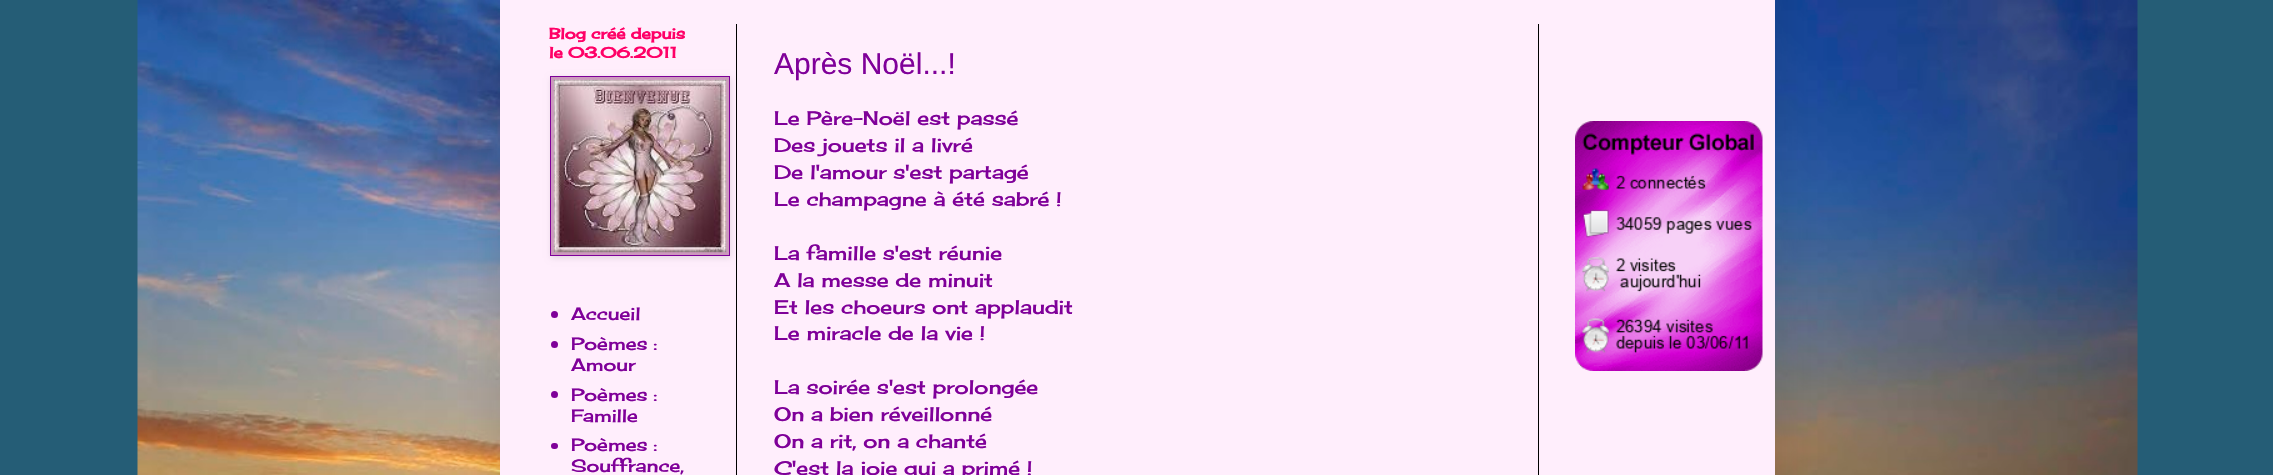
#include "include/core/SkBlurTypes.h"
#include "include/core/SkCanvas.h"
#include "include/core/SkData.h"
#include "include/core/SkFont.h"
#include "include/core/SkFontMgr.h"
#include "include/core/SkImage.h"
#include "include/core/SkMaskFilter.h"
#include "include/core/SkPaint.h"
#include "include/core/SkPathBuilder.h"
#include "include/core/SkTextBlob.h"
#include "include/effects/SkDashPathEffect.h"
#include "include/effects/SkGradientShader.h"
#include "include/utils/SkParsePath.h"

extern sk_sp<SkFontMgr> fontMgr;

static SkFont font(const char* family, int weight, float size, bool italic = false) {
    SkFontStyle style(weight, SkFontStyle::kNormal_Width,
        italic ? SkFontStyle::kItalic_Slant : SkFontStyle::kUpright_Slant);
    SkFont result(fontMgr->matchFamilyStyle(family, style), size);
    result.setSubpixel(true);
    return result;
}

static void drawLabel(SkCanvas* canvas, const char* s, float x, float y, const SkFont& font, SkColor color) {
    SkPaint ink(SkColor4f::FromColor(color));
    ink.setAntiAlias(true);
    canvas->drawString(s, x, y, font, ink);
}

static void fillRect(SkCanvas* canvas, float x, float y, float w, float h, SkColor color) {
    SkPaint ink(SkColor4f::FromColor(color));
    ink.setAntiAlias(true);
    canvas->drawRect(SkRect::MakeXYWH(x, y, w, h), ink);
}

static void fillRRect(SkCanvas* canvas, float x, float y, float w, float h, float radius, SkColor color) {
    SkPaint ink(SkColor4f::FromColor(color));
    ink.setAntiAlias(true);
    canvas->drawRoundRect(SkRect::MakeXYWH(x, y, w, h), radius, radius, ink);
}

static void drawPhoto(SkCanvas* canvas, const char* path, float x, float y, float w, float h) {
    auto image = SkImages::DeferredFromEncodedData(SkData::MakeFromFileName(path));
    canvas->drawImageRect(image, SkRect::MakeXYWH(x, y, w, h), SkSamplingOptions());
}

void draw(SkCanvas* canvas) {
    SkPaint paint;
    paint.setAntiAlias(true);
    canvas->clear(0xFF255D76);
    drawPhoto(canvas, "assets/img1.png", 137, 0, 2001, 475);
    paint.setColor(0x26000000);
    paint.setMaskFilter(SkMaskFilter::MakeBlur(kNormal_SkBlurStyle, 25));
    canvas->drawRect(SkRect::MakeXYWH(500, -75, 1275, 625), paint);
    paint.setMaskFilter(nullptr);
    fillRect(canvas, 500, 0, 1275, 475, 0xFFFFEEFC);
    fillRect(canvas, 736, 24, 1, 451, 0xFF000000);
    fillRect(canvas, 1538, 24, 1, 451, 0xFF000000);
    SkFont font1 = font("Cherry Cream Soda", 700, 15);
    drawLabel(canvas, "Blog créé depuis", 549, 39, font1, 0xFFFF0067);
    drawLabel(canvas, "le 03.06.2011", 549, 58, font1, 0xFFFF0067);
    paint.setColor(0x1A000000);
    paint.setMaskFilter(SkMaskFilter::MakeBlur(kNormal_SkBlurStyle, 3));
    canvas->drawRect(SkRect::MakeXYWH(551, 78, 180, 180), paint);
    paint.setMaskFilter(nullptr);
    paint.setColor(0xFFCC99BD);
    canvas->drawRect(SkRect::MakeXYWH(550.5f, 76.5f, 179, 179), paint);
    paint.setStroke(true);
    paint.setStrokeWidth(1);
    paint.setColor(0xFF7E0099);
    canvas->drawRect(SkRect::MakeXYWH(550.5f, 76.5f, 179, 179), paint);
    drawPhoto(canvas, "assets/img2.png", 553, 79, 174, 174);
    paint.setStroke(false);
    paint.setColor(0xFF7F0099);
    canvas->drawCircle(554.5f, 314.5f, 3.5f, paint);
    SkFont font2 = font("Cherry Cream Soda", 400, 17.5f);
    drawLabel(canvas, "Accueil", 571, 320, font2, 0xFF7F0099);
    canvas->drawCircle(554.5f, 344.5f, 3.5f, paint);
    drawLabel(canvas, "Poèmes :", 571, 350, font2, 0xFF7F0099);
    drawLabel(canvas, "Amour", 571, 371, font2, 0xFF7F0099);
    canvas->drawCircle(554.5f, 394.5f, 3.5f, paint);
    drawLabel(canvas, "Poèmes :", 571, 401, font2, 0xFF7F0099);
    drawLabel(canvas, "Famille", 571, 422, font2, 0xFF7F0099);
    fillRRect(canvas, 551, 443, 7, 6, 3, 0xFF7F0099);
    drawLabel(canvas, "Poèmes :", 571, 451, font2, 0xFF7F0099);
    drawLabel(canvas, "Souffrance,", 571, 472, font2, 0xFF7F0099);
    SkFont font3 = font("Liberation Sans", 400, 30);
    drawLabel(canvas, "Après Noël...!", 774, 74, font3, 0xFF7F0099);
    SkFont font4 = font("Cherry Cream Soda", 400, 19.25f);
    drawLabel(canvas, "Le Père-Noël est passé", 774, 125, font4, 0xFF7F0099);
    drawLabel(canvas, "Des jouets il a livré", 774, 152, font4, 0xFF7F0099);
    drawLabel(canvas, "De l'amour s'est partagé", 774, 179, font4, 0xFF7F0099);
    drawLabel(canvas, "Le champagne à été sabré !", 774, 206, font4, 0xFF7F0099);
    drawLabel(canvas, "La famille s'est réunie", 774, 260, font4, 0xFF7F0099);
    drawLabel(canvas, "A la messe de minuit", 774, 287, font4, 0xFF7F0099);
    drawLabel(canvas, "Et les choeurs ont applaudit", 774, 314, font4, 0xFF7F0099);
    drawLabel(canvas, "Le miracle de la vie !", 774, 340, font4, 0xFF7F0099);
    drawLabel(canvas, "La soirée s'est prolongée", 774, 394, font4, 0xFF7F0099);
    drawLabel(canvas, "On a bien réveillonné", 774, 421, font4, 0xFF7F0099);
    drawLabel(canvas, "On a rit, on a chanté", 774, 448, font4, 0xFF7F0099);
    drawLabel(canvas, "C'est la joie qui a primé !", 774, 475, font4, 0xFF7F0099);
    drawPhoto(canvas, "assets/img3.png", 1575, 121, 188, 250);
}
